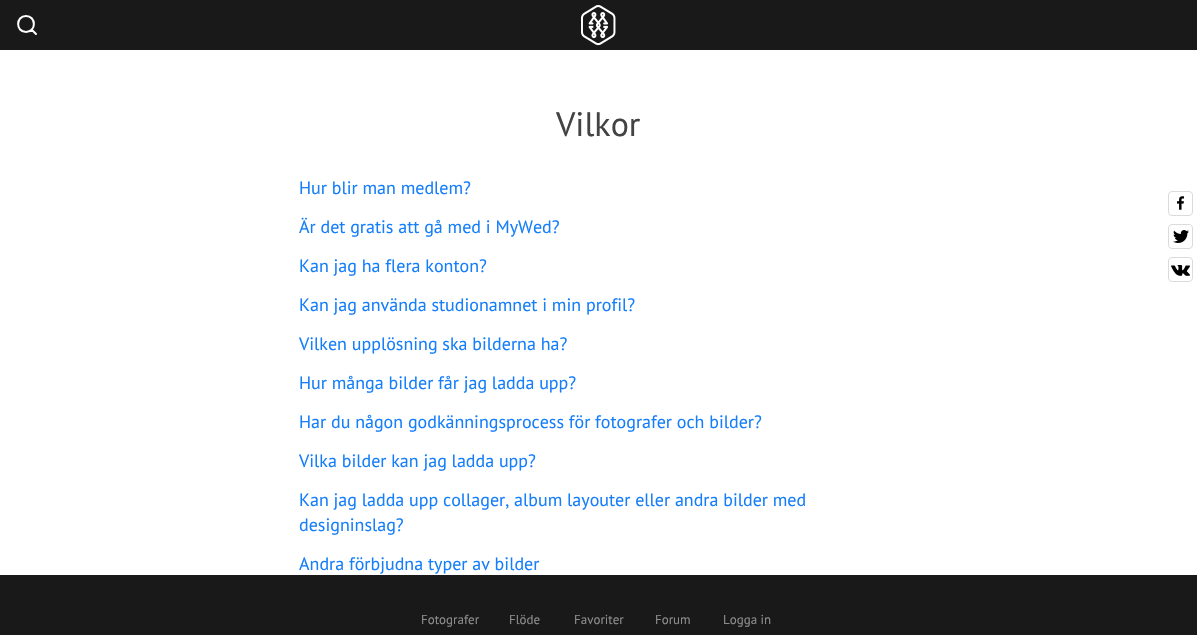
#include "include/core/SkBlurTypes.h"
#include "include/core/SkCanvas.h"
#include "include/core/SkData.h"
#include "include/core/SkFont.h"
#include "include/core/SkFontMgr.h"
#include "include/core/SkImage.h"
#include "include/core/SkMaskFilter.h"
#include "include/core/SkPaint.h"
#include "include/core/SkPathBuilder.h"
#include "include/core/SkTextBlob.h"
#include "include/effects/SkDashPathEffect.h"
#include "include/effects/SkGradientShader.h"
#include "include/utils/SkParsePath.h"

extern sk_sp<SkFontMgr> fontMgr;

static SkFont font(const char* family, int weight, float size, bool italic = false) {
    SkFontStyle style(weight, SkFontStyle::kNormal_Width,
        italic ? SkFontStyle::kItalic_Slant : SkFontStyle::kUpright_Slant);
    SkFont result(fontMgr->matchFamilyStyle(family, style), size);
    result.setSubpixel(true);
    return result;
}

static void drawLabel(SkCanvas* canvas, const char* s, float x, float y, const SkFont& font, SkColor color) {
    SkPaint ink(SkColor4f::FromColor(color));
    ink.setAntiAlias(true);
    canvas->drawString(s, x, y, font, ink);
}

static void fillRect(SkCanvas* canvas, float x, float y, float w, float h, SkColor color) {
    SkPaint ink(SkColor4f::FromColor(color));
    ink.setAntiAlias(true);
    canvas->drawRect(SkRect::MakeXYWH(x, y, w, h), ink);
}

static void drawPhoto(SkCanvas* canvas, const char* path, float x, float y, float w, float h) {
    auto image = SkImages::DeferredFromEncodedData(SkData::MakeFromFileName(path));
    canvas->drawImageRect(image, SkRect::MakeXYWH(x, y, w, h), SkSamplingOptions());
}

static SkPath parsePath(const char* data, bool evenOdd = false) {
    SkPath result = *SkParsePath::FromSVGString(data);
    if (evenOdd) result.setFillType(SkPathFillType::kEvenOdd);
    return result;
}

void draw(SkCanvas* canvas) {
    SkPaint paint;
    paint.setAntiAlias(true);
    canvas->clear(0xFFFFFFFF);
    fillRect(canvas, 0, 0, 1197, 50, 0xFF191919);
    paint.setStroke(true);
    paint.setStrokeWidth(2);
    paint.setStrokeCap(SkPaint::kRound_Cap);
    paint.setStrokeJoin(SkPaint::kRound_Join);
    paint.setColor(0xFFFFFFFF);
    canvas->drawPath(parsePath("M26 32C36.5 32 36.5 16 26 16C15.5 16 15.5 32 26 32ZM36 34L31.5 29.5"), paint);
    drawPhoto(canvas, "assets/img1.png", 581, 5, 35, 41);
    SkFont font1 = font("PT Sans", 400, 34);
    drawLabel(canvas, "Vilkor", 556, 136, font1, 0xFF434343);
    SkFont font2 = font("PT Sans", 400, 18);
    drawLabel(canvas, "Hur blir man medlem?", 299, 194, font2, 0xFF157EFB);
    drawLabel(canvas, "Är det gratis att gå med i MyWed?", 299, 233, font2, 0xFF157EFB);
    drawLabel(canvas, "Kan jag ha flera konton?", 299, 272, font2, 0xFF157EFB);
    drawLabel(canvas, "Kan jag använda studionamnet i min profil?", 299, 311, font2, 0xFF157EFB);
    drawLabel(canvas, "Vilken upplösning ska bilderna ha?", 299, 350, font2, 0xFF157EFB);
    drawLabel(canvas, "Hur många bilder får jag ladda upp?", 299, 389, font2, 0xFF157EFB);
    drawLabel(canvas, "Har du någon godkänningsprocess för fotografer och bilder?", 299, 428, font2, 0xFF157EFB);
    drawLabel(canvas, "Vilka bilder kan jag ladda upp?", 299, 467, font2, 0xFF157EFB);
    drawLabel(canvas, "Kan jag ladda upp collager, album layouter eller andra bilder med", 299, 506, font2, 0xFF157EFB);
    drawLabel(canvas, "designinslag?", 299, 531, font2, 0xFF157EFB);
    drawLabel(canvas, "Andra förbjudna typer av bilder", 299, 570, font2, 0xFF157EFB);
    paint.setStrokeWidth(1);
    paint.setStrokeCap(SkPaint::kButt_Cap);
    paint.setStrokeJoin(SkPaint::kMiter_Join);
    paint.setColor(0xFFDBDBDB);
    canvas->drawRoundRect(SkRect::MakeXYWH(1168.5f, 191.5f, 24, 24), 3.5f, 3.5f, paint);
    drawPhoto(canvas, "assets/img2.png", 1177, 196, 7, 14);
    canvas->drawRoundRect(SkRect::MakeXYWH(1168.5f, 224.5f, 24, 24), 3.5f, 3.5f, paint);
    drawPhoto(canvas, "assets/img3.png", 1173, 230, 16, 13);
    canvas->drawRoundRect(SkRect::MakeXYWH(1168.5f, 257.5f, 24, 24), 3.5f, 3.5f, paint);
    drawPhoto(canvas, "assets/img4.png", 1171, 265, 19, 11);
    fillRect(canvas, 0, 575, 1197, 60, 0xFF191919);
    SkFont font3 = font("PT Sans", 400, 13);
    drawLabel(canvas, "Fotografer", 421, 624, font3, 0xFF8C8C8C);
    drawLabel(canvas, "Flöde", 509, 624, font3, 0xFF8C8C8C);
    drawLabel(canvas, "Favoriter", 574, 624, font3, 0xFF8C8C8C);
    drawLabel(canvas, "Forum", 655, 624, font3, 0xFF8C8C8C);
    drawLabel(canvas, "Logga in", 723, 624, font3, 0xFF8C8C8C);
}
